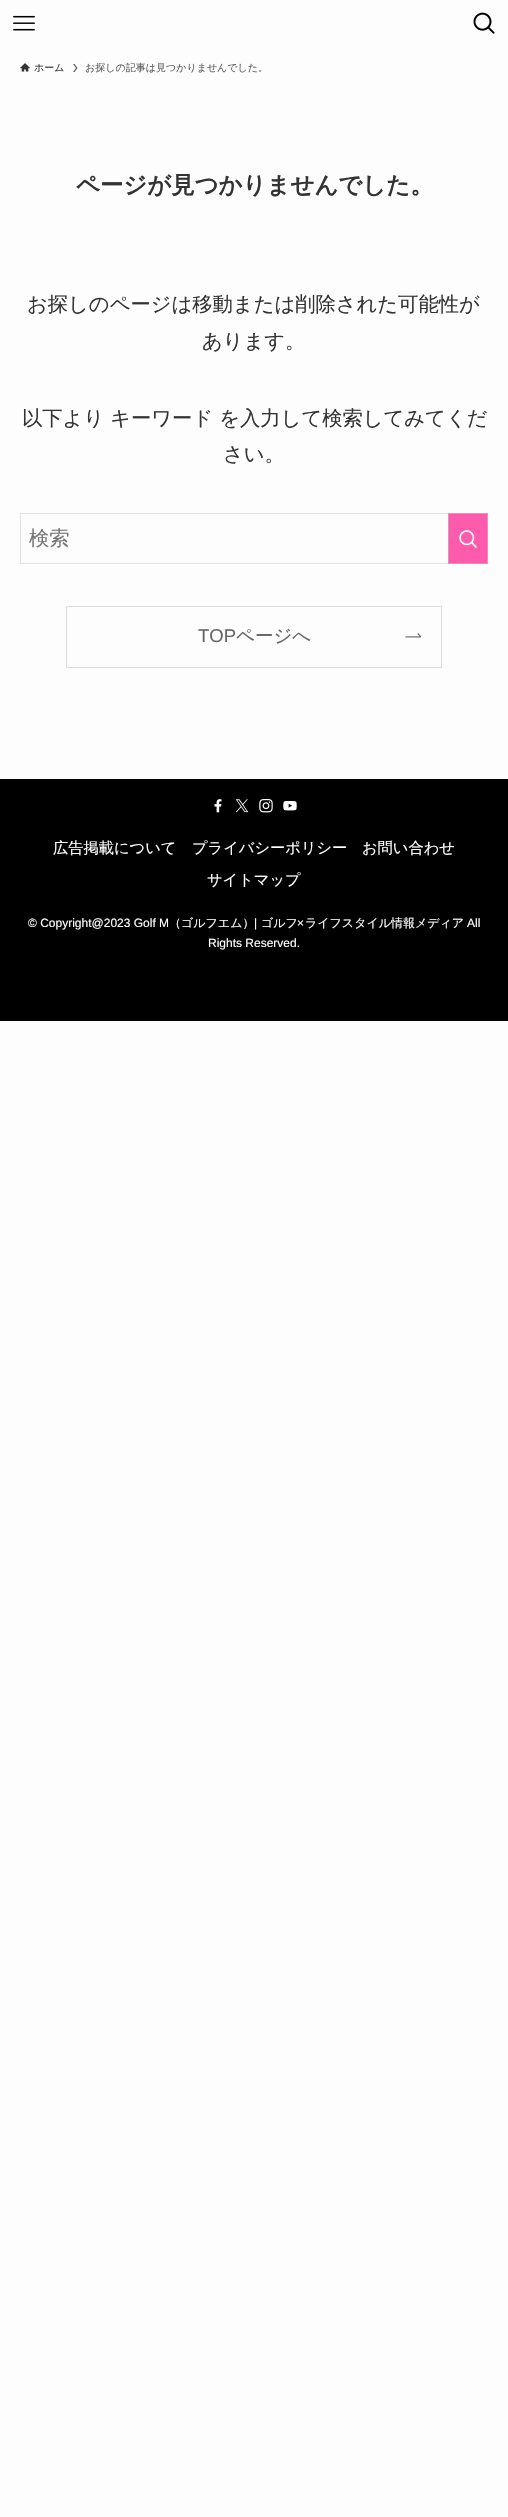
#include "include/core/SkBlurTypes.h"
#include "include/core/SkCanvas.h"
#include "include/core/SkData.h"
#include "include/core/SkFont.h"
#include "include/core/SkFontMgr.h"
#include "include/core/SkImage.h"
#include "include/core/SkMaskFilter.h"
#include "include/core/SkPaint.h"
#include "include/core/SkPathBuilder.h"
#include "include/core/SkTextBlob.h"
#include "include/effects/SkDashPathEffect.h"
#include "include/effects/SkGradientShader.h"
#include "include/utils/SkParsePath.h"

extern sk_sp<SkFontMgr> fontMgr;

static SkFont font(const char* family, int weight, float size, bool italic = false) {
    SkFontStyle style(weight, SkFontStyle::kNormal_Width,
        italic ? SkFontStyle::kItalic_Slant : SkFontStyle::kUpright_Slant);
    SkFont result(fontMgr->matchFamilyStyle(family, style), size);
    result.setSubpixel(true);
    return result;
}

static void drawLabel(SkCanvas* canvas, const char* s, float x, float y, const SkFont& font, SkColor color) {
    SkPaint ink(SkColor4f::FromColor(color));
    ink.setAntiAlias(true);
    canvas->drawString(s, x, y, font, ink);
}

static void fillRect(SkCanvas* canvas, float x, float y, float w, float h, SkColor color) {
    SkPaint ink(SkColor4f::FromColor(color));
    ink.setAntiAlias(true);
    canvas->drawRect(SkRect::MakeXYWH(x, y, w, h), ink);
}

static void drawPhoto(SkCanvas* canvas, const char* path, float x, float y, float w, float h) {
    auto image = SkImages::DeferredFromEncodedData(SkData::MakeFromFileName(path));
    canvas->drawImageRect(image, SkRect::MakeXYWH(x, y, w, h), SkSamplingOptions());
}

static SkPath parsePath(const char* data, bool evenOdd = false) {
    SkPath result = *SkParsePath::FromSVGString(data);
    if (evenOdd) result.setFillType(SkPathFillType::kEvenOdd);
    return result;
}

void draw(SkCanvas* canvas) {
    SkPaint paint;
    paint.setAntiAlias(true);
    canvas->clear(0xFFFDFDFD);
    drawPhoto(canvas, "assets/img1.png", 13, 15, 22, 16);
    drawPhoto(canvas, "assets/img2.png", 473, 12, 22, 22);
    drawPhoto(canvas, "assets/img3.png", 20, 63, 10, 9);
    SkFont font1 = font("WenQuanYi Zen Hei", 500, 10);
    drawLabel(canvas, "ホーム", 34, 71, font1, 0xFF333333);
    paint.setColor(0xFF5B5B5B);
    canvas->drawPath(parsePath("M74.5 64H73L76 68L73 72H74.5L77.5 68Z"), paint);
    drawLabel(canvas, "お探しの記事は見つかりませんでした。", 85, 71, font1, 0xFF5B5B5B);
    SkFont font2 = font("WenQuanYi Zen Hei", 700, 23.4f);
    drawLabel(canvas, "ページが見つかりませんでした。", 76, 193, font2, 0xFF333333);
    SkFont font3 = font("WenQuanYi Zen Hei", 500, 20.3f);
    drawLabel(canvas, "お探しのページは移動または削除された可能性が", 27, 311, font3, 0xFF333333);
    drawLabel(canvas, "あります。", 202, 348, font3, 0xFF333333);
    drawLabel(canvas, "以下より キーワード を入力して検索してみてくだ", 22, 425, font3, 0xFF333333);
    drawLabel(canvas, "さい。", 223, 461, font3, 0xFF333333);
    paint.setStroke(true);
    paint.setStrokeWidth(1);
    paint.setColor(0xFFE3E3E3);
    canvas->drawRect(SkRect::MakeXYWH(20.5f, 513.5f, 467, 50), paint);
    drawLabel(canvas, "検索", 29, 545, font3, 0xFF757575);
    paint.setStroke(false);
    paint.setColor(0xFFFE5BAC);
    canvas->drawRect(SkRect::MakeXYWH(448.5f, 513.5f, 39, 50), paint);
    paint.setStroke(true);
    paint.setColor(0xFFE391BA);
    canvas->drawRect(SkRect::MakeXYWH(448.5f, 513.5f, 39, 50), paint);
    drawPhoto(canvas, "assets/img4.png", 459, 530, 18, 18);
    paint.setColor(0xFFDCDCDC);
    canvas->drawRect(SkRect::MakeXYWH(66.5f, 606.5f, 375, 61), paint);
    SkFont font4 = font("Liberation Sans", 400, 18.5f);
    drawLabel(canvas, "TOP", 198, 642, font4, 0xFF666666);
    SkFont font5 = font("WenQuanYi Zen Hei", 500, 18.5f);
    drawLabel(canvas, "ページへ", 236, 642, font5, 0xFF666666);
    drawPhoto(canvas, "assets/img5.png", 405, 633, 17, 5);
    fillRect(canvas, 0, 779, 508, 242, 0xFF000000);
    drawPhoto(canvas, "assets/img6.png", 214, 799, 8, 14);
    drawPhoto(canvas, "assets/img7.png", 235, 799, 14, 14);
    drawPhoto(canvas, "assets/img8.png", 259, 799, 14, 14);
    drawPhoto(canvas, "assets/img9.png", 283, 801, 14, 10);
    SkFont font6 = font("WenQuanYi Zen Hei", 500, 15.25f);
    drawLabel(canvas, "広告掲載について", 53, 853, font6, 0xFFFFFFFF);
    drawLabel(canvas, "プライバシーポリシー", 192, 853, font6, 0xFFFFFFFF);
    drawLabel(canvas, "お問い合わせ", 362, 853, font6, 0xFFFFFFFF);
    drawLabel(canvas, "サイトマップ", 207, 885, font6, 0xFFFFFFFF);
    SkFont font7 = font("Liberation Sans", 400, 12);
    drawLabel(canvas, "© Copyright@2023 Golf M", 28, 927, font7, 0xFFFFFFFF);
    SkFont font8 = font("WenQuanYi Zen Hei", 500, 12);
    drawLabel(canvas, "（ゴルフエム）", 169, 927, font8, 0xFFFFFFFF);
    drawLabel(canvas, "|", 254, 927, font7, 0xFFFFFFFF);
    drawLabel(canvas, "ゴルフ", 261, 927, font8, 0xFFFFFFFF);
    drawLabel(canvas, "×", 297, 927, font7, 0xFFFFFFFF);
    drawLabel(canvas, "ライフスタイル情報メディア", 305, 927, font8, 0xFFFFFFFF);
    drawLabel(canvas, "All", 467, 927, font7, 0xFFFFFFFF);
    drawLabel(canvas, "Rights Reserved.", 208, 947, font7, 0xFFFFFFFF);
}
